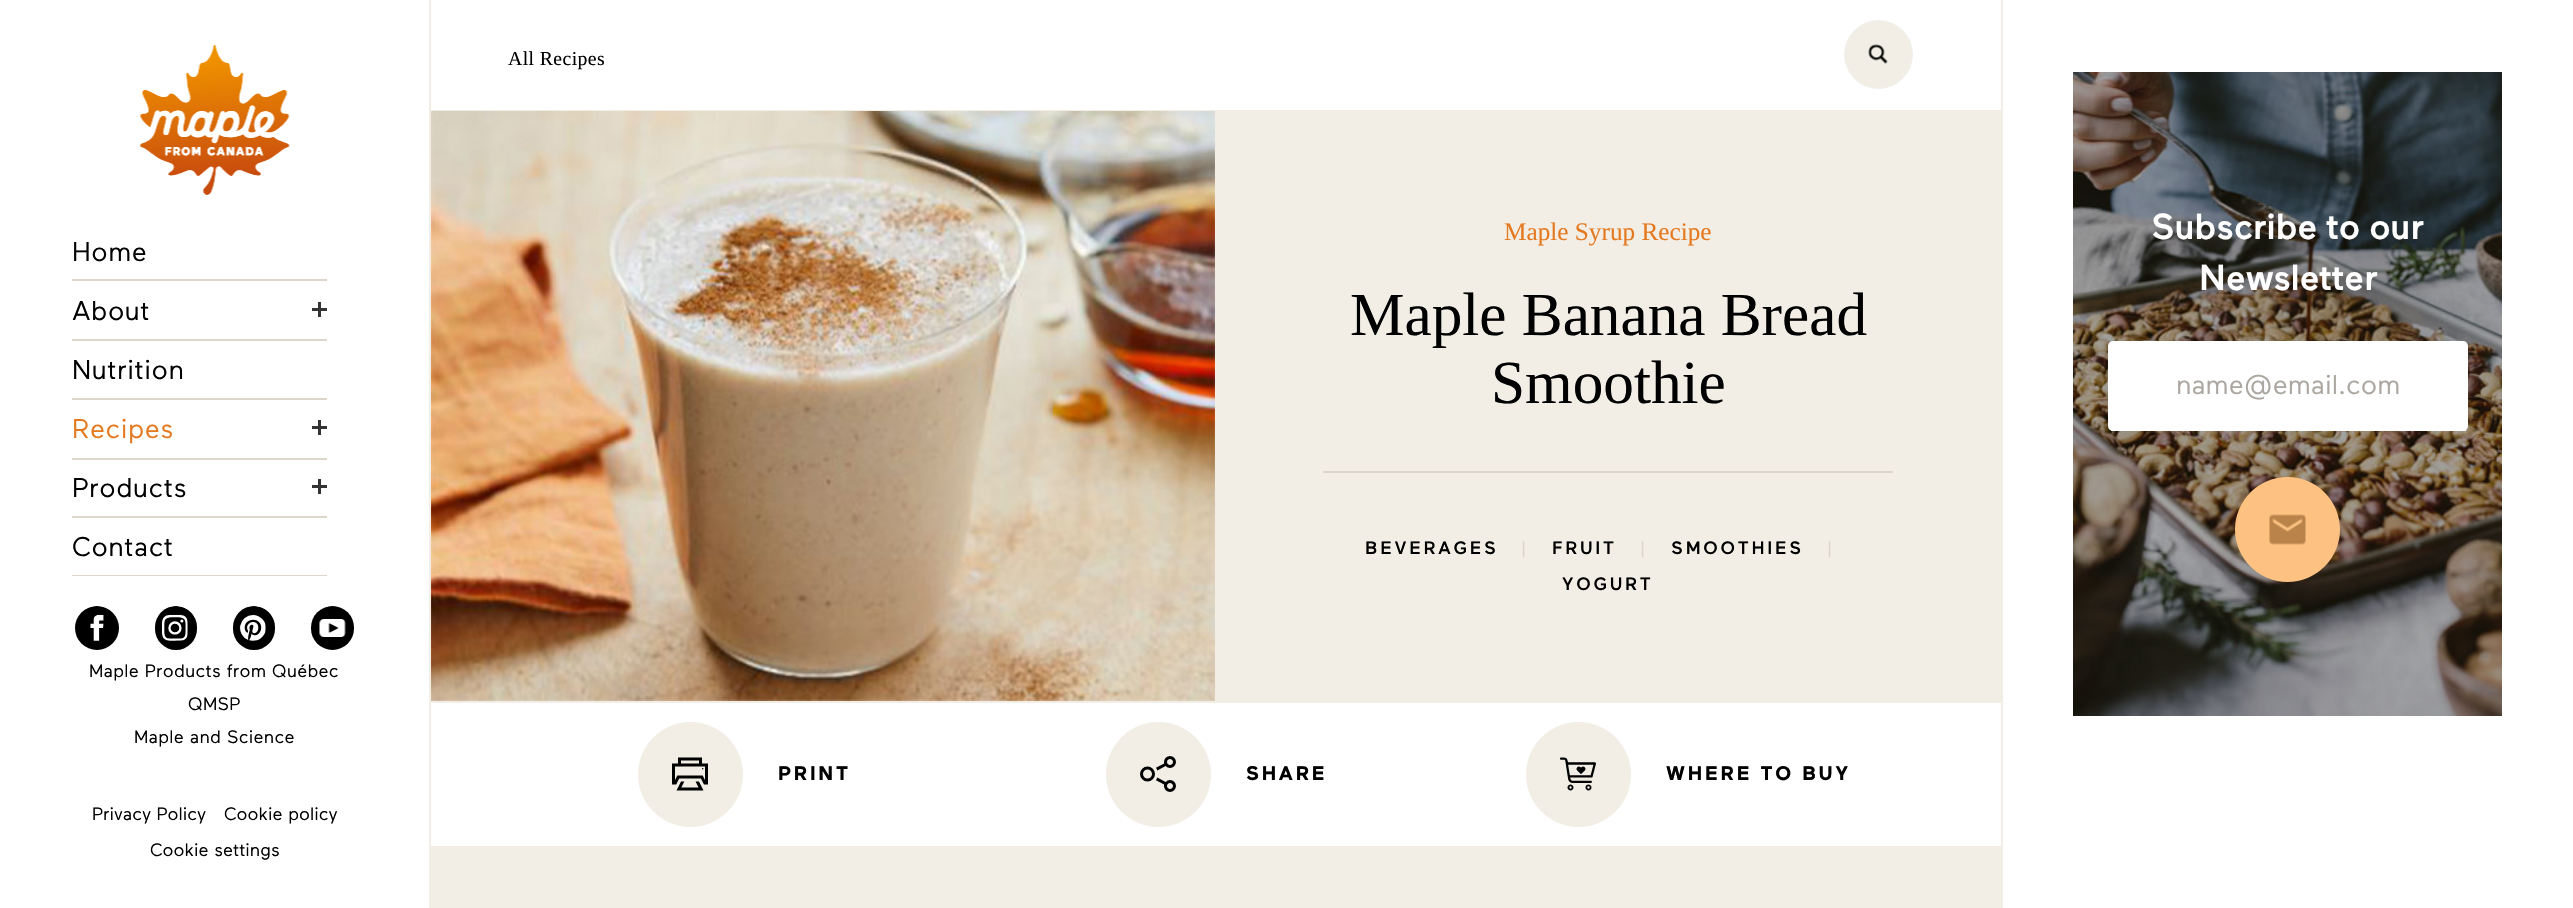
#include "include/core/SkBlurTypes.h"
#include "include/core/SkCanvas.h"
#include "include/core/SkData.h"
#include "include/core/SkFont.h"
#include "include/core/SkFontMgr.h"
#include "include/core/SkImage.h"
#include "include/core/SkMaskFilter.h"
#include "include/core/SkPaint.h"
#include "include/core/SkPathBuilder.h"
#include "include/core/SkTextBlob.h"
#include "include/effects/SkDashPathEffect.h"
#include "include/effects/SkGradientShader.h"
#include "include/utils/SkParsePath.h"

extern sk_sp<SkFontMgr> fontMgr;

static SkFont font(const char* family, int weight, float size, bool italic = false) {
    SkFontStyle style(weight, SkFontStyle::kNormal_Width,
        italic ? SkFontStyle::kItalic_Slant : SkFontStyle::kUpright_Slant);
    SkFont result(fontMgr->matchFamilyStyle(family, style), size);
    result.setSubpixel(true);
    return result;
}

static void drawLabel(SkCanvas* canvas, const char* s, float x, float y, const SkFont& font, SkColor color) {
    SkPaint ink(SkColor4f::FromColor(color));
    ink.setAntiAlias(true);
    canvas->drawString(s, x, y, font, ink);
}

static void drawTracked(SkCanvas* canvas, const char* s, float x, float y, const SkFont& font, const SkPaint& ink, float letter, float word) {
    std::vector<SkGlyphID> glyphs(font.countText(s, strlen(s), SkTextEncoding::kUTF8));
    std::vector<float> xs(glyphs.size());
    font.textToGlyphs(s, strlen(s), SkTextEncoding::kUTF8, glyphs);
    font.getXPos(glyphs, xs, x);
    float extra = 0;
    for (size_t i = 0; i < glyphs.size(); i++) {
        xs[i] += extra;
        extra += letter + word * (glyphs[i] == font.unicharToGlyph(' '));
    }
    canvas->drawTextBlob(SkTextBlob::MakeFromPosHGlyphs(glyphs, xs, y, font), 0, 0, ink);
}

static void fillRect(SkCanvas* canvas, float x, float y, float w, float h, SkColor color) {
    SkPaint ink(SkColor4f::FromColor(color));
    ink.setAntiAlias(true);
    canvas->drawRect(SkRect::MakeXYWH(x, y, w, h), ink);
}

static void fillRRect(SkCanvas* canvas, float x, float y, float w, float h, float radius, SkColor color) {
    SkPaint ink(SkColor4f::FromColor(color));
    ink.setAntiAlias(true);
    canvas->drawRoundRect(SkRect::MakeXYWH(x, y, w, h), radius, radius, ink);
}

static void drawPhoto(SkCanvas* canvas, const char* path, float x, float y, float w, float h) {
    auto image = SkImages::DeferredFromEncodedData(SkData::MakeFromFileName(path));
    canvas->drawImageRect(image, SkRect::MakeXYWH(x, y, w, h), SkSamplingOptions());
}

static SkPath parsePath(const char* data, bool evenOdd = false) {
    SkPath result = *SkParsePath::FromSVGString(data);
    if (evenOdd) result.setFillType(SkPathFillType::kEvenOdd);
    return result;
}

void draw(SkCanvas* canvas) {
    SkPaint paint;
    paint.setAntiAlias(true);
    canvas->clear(0xFFF2EEE5);
    fillRect(canvas, 0, 0, 429, 908, 0xFFFFFFFF);
    drawPhoto(canvas, "assets/img1.png", 139, 45, 151, 150);
    fillRect(canvas, 72, 279, 255, 2, 0xFFDCD6CC);
    SkFont font1 = font("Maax", 400, 27);
    paint.setColor(0xFF000000);
    drawTracked(canvas, "Home", 72, 261, font1, paint, 0.5f, 0);
    fillRect(canvas, 72, 339, 255, 2, 0xFFDCD6CC);
    drawTracked(canvas, "About", 72, 320, font1, paint, 0.5f, 0);
    fillRect(canvas, 318, 302, 3, 15, 0xFF333333);
    fillRect(canvas, 312, 308, 15, 3, 0xFF333333);
    fillRect(canvas, 72, 398, 255, 2, 0xFFDCD6CC);
    drawTracked(canvas, "Nutrition", 72, 379, font1, paint, 0.5f, 0);
    fillRect(canvas, 72, 458, 255, 2, 0xFFDCD6CC);
    paint.setColor(0xFFE57920);
    drawTracked(canvas, "Recipes", 72, 438, font1, paint, 0.5f, 0);
    fillRect(canvas, 318, 420, 3, 15, 0xFF333333);
    fillRect(canvas, 312, 426, 15, 3, 0xFF333333);
    fillRect(canvas, 72, 516, 255, 2, 0xFFDCD6CC);
    paint.setColor(0xFF000000);
    drawTracked(canvas, "Products", 72, 497, font1, paint, 0.5f, 0);
    fillRect(canvas, 318, 479, 3, 15, 0xFF333333);
    fillRect(canvas, 312, 485, 15, 3, 0xFF333333);
    fillRect(canvas, 72, 575, 255, 1, 0xFFDCD6CC);
    drawTracked(canvas, "Contact", 72, 556, font1, paint, 0.5f, 0);
    canvas->save();
    canvas->clipPath(parsePath("M96.5 606H97.5C110 606 120 616 120 628.5C120 641 110 651 97.5 651H96.5C84 651 74 641 74 628.5C74 616 84 606 96.5 606Z"), true);
    canvas->drawCircle(97, 628, 22, paint);
    canvas->restore();
    drawPhoto(canvas, "assets/img2.png", 90, 614, 14, 27);
    canvas->save();
    canvas->clipPath(parsePath("M175.5 606C188 606 198 616 198 628.5C198 641 188 651 175.5 651C163 651 153 641 153 628.5C153 616 163 606 175.5 606Z"), true);
    fillRRect(canvas, 155, 606, 42, 44, 21, 0xFF000000);
    canvas->restore();
    drawPhoto(canvas, "assets/img3.png", 161, 614, 27, 27);
    canvas->save();
    canvas->clipPath(parsePath("M253.5 606C266 606 276 616 276 628.5C276 641 266 651 253.5 651C241 651 231 641 231 628.5C231 616 241 606 253.5 606Z"), true);
    fillRRect(canvas, 233, 606, 42, 44, 21, 0xFF000000);
    canvas->restore();
    drawPhoto(canvas, "assets/img4.png", 239, 614, 27, 27);
    canvas->save();
    canvas->clipPath(parsePath("M331.5 606H333.5C346 606 356 616 356 628.5C356 641 346 651 333.5 651H331.5C319 651 309 641 309 628.5C309 616 319 606 331.5 606Z"), true);
    fillRRect(canvas, 311, 606, 43, 44, 21.5f, 0xFF000000);
    canvas->restore();
    drawPhoto(canvas, "assets/img5.png", 319, 619, 27, 18);
    SkFont font2 = font("Maax", 400, 18);
    drawTracked(canvas, "Maple Products from Québec", 89, 677, font2, paint, 0.25f, 0);
    drawTracked(canvas, "QMSP", 188, 710, font2, paint, 0.25f, 0);
    drawTracked(canvas, "Maple and Science", 134, 743, font2, paint, 0.25f, 0);
    drawLabel(canvas, "Privacy Policy", 92, 820, font2, 0xFF000000);
    drawLabel(canvas, "Cookie policy", 224, 820, font2, 0xFF000000);
    drawLabel(canvas, "Cookie settings", 150, 856, font2, 0xFF000000);
    fillRect(canvas, 431, 0, 1570, 110, 0xFFFFFFFF);
    SkFont font3 = font("Liberation Serif", 400, 19.75f);
    drawTracked(canvas, "All Recipes", 508, 65, font3, paint, 0.4f, 0);
    paint.setColor(0xFFF2EEE5);
    canvas->drawCircle(1878.5f, 54.5f, 34, paint);
    paint.setStroke(true);
    paint.setStrokeWidth(1);
    paint.setColor(0xFFF3F1EE);
    canvas->drawCircle(1878.5f, 54.5f, 34, paint);
    drawPhoto(canvas, "assets/img6.png", 1868, 44, 20, 20);
    drawPhoto(canvas, "assets/img7.png", 431, 111, 784, 590);
    SkFont font4 = font("Liberation Serif", 400, 25.25f);
    drawLabel(canvas, "Maple Syrup Recipe", 1504, 240, font4, 0xFFE57920);
    SkFont font5 = font("Liberation Serif", 400, 61.25f);
    drawLabel(canvas, "Maple Banana Bread", 1350, 335, font5, 0xFF000000);
    drawLabel(canvas, "Smoothie", 1491, 403, font5, 0xFF000000);
    fillRect(canvas, 1323, 471, 570, 2, 0xFFDCD6CC);
    SkFont font6 = font("Maax", 500, 18);
    paint.setStroke(false);
    paint.setColor(0xFF000000);
    drawTracked(canvas, "BEVERAGES", 1365, 554, font6, paint, 2.75f, 0);
    paint.setColor(0xFFDCD6CC);
    drawTracked(canvas, "|", 1520, 554, font2, paint, 2.75f, 0);
    paint.setColor(0xFF000000);
    drawTracked(canvas, "FRUIT", 1552, 554, font6, paint, 2.75f, 0);
    paint.setColor(0xFFDCD6CC);
    drawTracked(canvas, "|", 1639, 554, font2, paint, 2.75f, 0);
    paint.setColor(0xFF000000);
    drawTracked(canvas, "SMOOTHIES", 1671, 554, font6, paint, 2.75f, 0);
    paint.setColor(0xFFDCD6CC);
    drawTracked(canvas, "|", 1826, 554, font2, paint, 2.75f, 0);
    paint.setColor(0xFF000000);
    drawTracked(canvas, "YOGURT", 1562, 590, font6, paint, 2.75f, 0);
    fillRect(canvas, 431, 703, 1570, 143, 0xFFFFFFFF);
    paint.setColor(0xFFF2EEE5);
    canvas->drawCircle(690.5f, 774.5f, 52.5f, paint);
    drawPhoto(canvas, "assets/img8.png", 672, 757, 36, 34);
    SkFont font7 = font("Maax", 700, 19.75f);
    paint.setColor(0xFF000000);
    drawTracked(canvas, "PRINT", 778, 780, font7, paint, 2.75f, 0);
    paint.setColor(0xFFF2EEE5);
    canvas->drawCircle(1158.5f, 774.5f, 52.5f, paint);
    drawPhoto(canvas, "assets/img9.png", 1140, 756, 36, 36);
    paint.setColor(0xFF000000);
    drawTracked(canvas, "SHARE", 1246, 780, font7, paint, 2.75f, 0);
    paint.setColor(0xFFF2EEE5);
    canvas->drawCircle(1578.5f, 774.5f, 52.5f, paint);
    drawPhoto(canvas, "assets/img10.png", 1560, 757, 36, 34);
    paint.setColor(0xFF000000);
    drawTracked(canvas, "WHERE TO BUY", 1666, 780, font7, paint, 2.75f, 0);
    fillRect(canvas, 2003, 0, 570, 908, 0xFFFFFFFF);
    drawPhoto(canvas, "assets/img11.png", 2073, 72, 429, 644);
    SkFont font8 = font("Maax", 500, 36);
    drawLabel(canvas, "Subscribe to our", 2151, 239, font8, 0xFFFFFFFF);
    drawLabel(canvas, "Newsletter", 2199, 290, font8, 0xFFFFFFFF);
    fillRRect(canvas, 2108, 341, 360, 90, 5, 0xFFFFFFFF);
    fillRect(canvas, 2111, 430, 355, 1, 0xFFFFFFFF);
    drawLabel(canvas, "name@email.com", 2176, 394, font1, 0xFFABA7A0);
    paint.setColor(0xFFFDC282);
    canvas->drawCircle(2287.5f, 529.5f, 52.5f, paint);
    drawPhoto(canvas, "assets/img12.png", 2269, 514, 37, 31);
}
